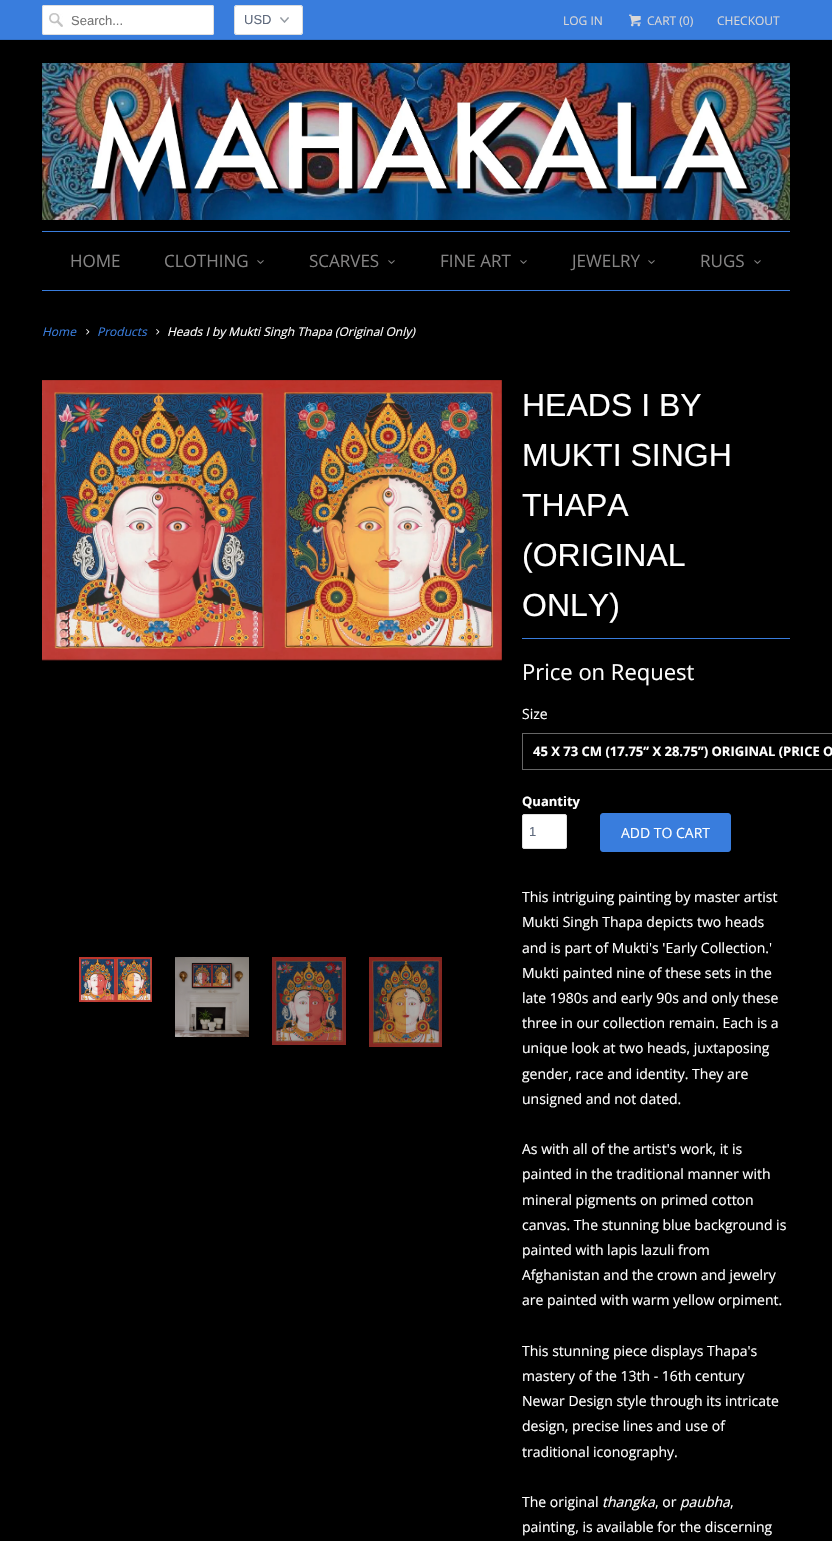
#include "include/core/SkBlurTypes.h"
#include "include/core/SkCanvas.h"
#include "include/core/SkData.h"
#include "include/core/SkFont.h"
#include "include/core/SkFontMgr.h"
#include "include/core/SkImage.h"
#include "include/core/SkMaskFilter.h"
#include "include/core/SkPaint.h"
#include "include/core/SkPathBuilder.h"
#include "include/core/SkTextBlob.h"
#include "include/effects/SkDashPathEffect.h"
#include "include/effects/SkGradientShader.h"
#include "include/utils/SkParsePath.h"

extern sk_sp<SkFontMgr> fontMgr;

static SkFont font(const char* family, int weight, float size, bool italic = false) {
    SkFontStyle style(weight, SkFontStyle::kNormal_Width,
        italic ? SkFontStyle::kItalic_Slant : SkFontStyle::kUpright_Slant);
    SkFont result(fontMgr->matchFamilyStyle(family, style), size);
    result.setSubpixel(true);
    return result;
}

static void drawLabel(SkCanvas* canvas, const char* s, float x, float y, const SkFont& font, SkColor color) {
    SkPaint ink(SkColor4f::FromColor(color));
    ink.setAntiAlias(true);
    canvas->drawString(s, x, y, font, ink);
}

static void fillRect(SkCanvas* canvas, float x, float y, float w, float h, SkColor color) {
    SkPaint ink(SkColor4f::FromColor(color));
    ink.setAntiAlias(true);
    canvas->drawRect(SkRect::MakeXYWH(x, y, w, h), ink);
}

static void fillRRect(SkCanvas* canvas, float x, float y, float w, float h, float radius, SkColor color) {
    SkPaint ink(SkColor4f::FromColor(color));
    ink.setAntiAlias(true);
    canvas->drawRoundRect(SkRect::MakeXYWH(x, y, w, h), radius, radius, ink);
}

static void drawPhoto(SkCanvas* canvas, const char* path, float x, float y, float w, float h) {
    auto image = SkImages::DeferredFromEncodedData(SkData::MakeFromFileName(path));
    canvas->drawImageRect(image, SkRect::MakeXYWH(x, y, w, h), SkSamplingOptions());
}

void draw(SkCanvas* canvas) {
    SkPaint paint;
    paint.setAntiAlias(true);
    canvas->clear(0xFF000000);
    fillRect(canvas, 0, 0, 832, 39, 0xFF397DDD);
    fillRect(canvas, 0, 39, 832, 1, 0xFF3371C7);
    fillRRect(canvas, 42, 5, 172, 30, 2, 0xFFFFFFFF);
    drawPhoto(canvas, "assets/img1.png", 49, 13, 14, 14);
    paint.setStroke(true);
    paint.setStrokeWidth(1);
    paint.setColor(0xFFDFDFDF);
    canvas->drawRoundRect(SkRect::MakeXYWH(42.5f, 5.5f, 171, 29), 1.5f, 1.5f, paint);
    SkFont font1 = font("Liberation Sans", 400, 13);
    drawLabel(canvas, "Search...", 71, 25, font1, 0xFF757575);
    fillRRect(canvas, 234, 5, 69, 30, 3, 0xFFFFFFFF);
    drawPhoto(canvas, "assets/img2.png", 280, 17, 9, 6);
    paint.setColor(0xFFD9DBDC);
    canvas->drawRoundRect(SkRect::MakeXYWH(234.5f, 5.5f, 68, 29), 2.5f, 2.5f, paint);
    drawLabel(canvas, "USD", 244, 24, font1, 0xFF5F6A7D);
    SkFont font2 = font("Open Sans", 400, 12);
    drawLabel(canvas, "LOG IN", 563, 25, font2, 0xFFD9D7D7);
    drawPhoto(canvas, "assets/img3.png", 629, 14, 12, 13);
    drawLabel(canvas, "CART (0)", 647, 25, font2, 0xFFD9D7D7);
    drawLabel(canvas, "CHECKOUT", 717, 25, font2, 0xFFD9D7D7);
    drawPhoto(canvas, "assets/img4.png", 42, 63, 748, 157);
    fillRect(canvas, 42, 231, 748, 1, 0xFF397DDD);
    fillRect(canvas, 42, 290, 748, 1, 0xFF397DDD);
    SkFont font3 = font("Open Sans", 400, 17);
    drawLabel(canvas, "HOME", 70, 267, font3, 0xFF848383);
    drawLabel(canvas, "CLOTHING", 164, 267, font3, 0xFF848383);
    drawPhoto(canvas, "assets/img5.png", 257, 260, 7, 4);
    drawLabel(canvas, "SCARVES", 309, 267, font3, 0xFF848383);
    drawPhoto(canvas, "assets/img5.png", 388, 260, 7, 4);
    drawLabel(canvas, "FINE ART", 440, 267, font3, 0xFF848383);
    drawPhoto(canvas, "assets/img5.png", 520, 260, 7, 4);
    drawLabel(canvas, "JEWELRY", 572, 267, font3, 0xFF848383);
    drawPhoto(canvas, "assets/img5.png", 648, 260, 7, 4);
    drawLabel(canvas, "RUGS", 700, 267, font3, 0xFF848383);
    drawPhoto(canvas, "assets/img5.png", 754, 260, 7, 4);
    SkFont font4 = font("Open Sans", 400, 12, true);
    drawLabel(canvas, "Home", 42, 336, font4, 0xFF397DDD);
    drawPhoto(canvas, "assets/img6.png", 86, 329, 4, 6);
    drawLabel(canvas, "Products", 97, 336, font4, 0xFF397DDD);
    drawPhoto(canvas, "assets/img6.png", 156, 329, 4, 6);
    drawLabel(canvas, "Heads I by Mukti Singh Thapa (Original Only)", 167, 336, font4, 0xFFFFFFFF);
    drawPhoto(canvas, "assets/img7.png", 42, 380, 460, 281);
    drawPhoto(canvas, "assets/img8.png", 79, 957, 73, 45);
    drawPhoto(canvas, "assets/img9.png", 175, 957, 74, 80);
    drawPhoto(canvas, "assets/img10.png", 272, 957, 74, 88);
    drawPhoto(canvas, "assets/img11.png", 369, 957, 73, 90);
    fillRect(canvas, 522, 638, 268, 1, 0xFF397DDD);
    SkFont font5 = font("Liberation Sans", 400, 32);
    drawLabel(canvas, "HEADS I BY", 522, 416, font5, 0xFFFFFFFF);
    drawLabel(canvas, "MUKTI SINGH", 522, 466, font5, 0xFFFFFFFF);
    drawLabel(canvas, "THAPA", 522, 516, font5, 0xFFFFFFFF);
    drawLabel(canvas, "(ORIGINAL", 522, 566, font5, 0xFFFFFFFF);
    drawLabel(canvas, "ONLY)", 522, 616, font5, 0xFFFFFFFF);
    SkFont font6 = font("Open Sans", 400, 22);
    drawLabel(canvas, "Price on Request", 522, 680, font6, 0xFFFFFFFF);
    SkFont font7 = font("Open Sans", 400, 14);
    drawLabel(canvas, "Size", 522, 719, font7, 0xFFFFFFFF);
    paint.setColor(0xFF666666);
    canvas->drawRect(SkRect::MakeXYWH(522.5f, 733.5f, 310, 36), paint);
    SkFont font8 = font("Open Sans", 700, 13);
    drawLabel(canvas, "45 X 73 CM (17.75” X 28.75”) ORIGINAL (PRICE O", 533, 756, font8, 0xFFFFFFFF);
    drawLabel(canvas, "Quantity", 522, 806, font8, 0xFFFFFFFF);
    paint.setStroke(false);
    paint.setColor(0xFFFFFFFF);
    canvas->drawRoundRect(SkRect::MakeXYWH(522.5f, 814.5f, 44, 34), 1.5f, 1.5f, paint);
    paint.setStroke(true);
    paint.setColor(0xFFDFDFDF);
    canvas->drawRoundRect(SkRect::MakeXYWH(522.5f, 814.5f, 44, 34), 1.5f, 1.5f, paint);
    drawLabel(canvas, "1", 529, 836, font1, 0xFF5F6A7D);
    paint.setStroke(false);
    paint.setColor(0xFF397DDD);
    canvas->drawRoundRect(SkRect::MakeXYWH(600.5f, 813.5f, 130, 38), 2.5f, 2.5f, paint);
    paint.setStroke(true);
    canvas->drawRoundRect(SkRect::MakeXYWH(600.5f, 813.5f, 130, 38), 2.5f, 2.5f, paint);
    drawLabel(canvas, "ADD TO CART", 621, 838, font7, 0xFFFFFFFF);
    drawLabel(canvas, "This intriguing painting by master artist", 522, 902, font7, 0xFFFFFFFF);
    drawLabel(canvas, "Mukti Singh Thapa depicts two heads", 522, 927, font7, 0xFFFFFFFF);
    drawLabel(canvas, "and is part of Mukti's 'Early Collection.'", 522, 953, font7, 0xFFFFFFFF);
    drawLabel(canvas, "Mukti painted nine of these sets in the", 522, 978, font7, 0xFFFFFFFF);
    drawLabel(canvas, "late 1980s and early 90s and only these", 522, 1003, font7, 0xFFFFFFFF);
    drawLabel(canvas, "three in our collection remain. Each is a", 522, 1028, font7, 0xFFFFFFFF);
    drawLabel(canvas, "unique look at two heads, juxtaposing", 522, 1053, font7, 0xFFFFFFFF);
    drawLabel(canvas, "gender, race and identity. They are", 522, 1079, font7, 0xFFFFFFFF);
    drawLabel(canvas, "unsigned and not dated.", 522, 1104, font7, 0xFFFFFFFF);
    drawLabel(canvas, "As with all of the artist's work, it is", 522, 1154, font7, 0xFFFFFFFF);
    drawLabel(canvas, "painted in the traditional manner with", 522, 1179, font7, 0xFFFFFFFF);
    drawLabel(canvas, "mineral pigments on primed cotton", 522, 1205, font7, 0xFFFFFFFF);
    drawLabel(canvas, "canvas. The stunning blue background is", 522, 1230, font7, 0xFFFFFFFF);
    drawLabel(canvas, "painted with lapis lazuli from", 522, 1255, font7, 0xFFFFFFFF);
    drawLabel(canvas, "Afghanistan and the crown and jewelry", 522, 1280, font7, 0xFFFFFFFF);
    drawLabel(canvas, "are painted with warm yellow orpiment.", 522, 1305, font7, 0xFFFFFFFF);
    drawLabel(canvas, "This stunning piece displays Thapa's", 522, 1356, font7, 0xFFFFFFFF);
    drawLabel(canvas, "mastery of the 13th - 16th century", 522, 1381, font7, 0xFFFFFFFF);
    drawLabel(canvas, "Newar Design style through its intricate", 522, 1406, font7, 0xFFFFFFFF);
    drawLabel(canvas, "design, precise lines and use of", 522, 1431, font7, 0xFFFFFFFF);
    drawLabel(canvas, "traditional iconography.", 522, 1457, font7, 0xFFFFFFFF);
    drawLabel(canvas, "The original", 522, 1507, font7, 0xFFFFFFFF);
    SkFont font9 = font("Open Sans", 400, 14, true);
    drawLabel(canvas, "thangka", 602, 1507, font9, 0xFFFFFFFF);
    drawLabel(canvas, ", or", 655, 1507, font7, 0xFFFFFFFF);
    drawLabel(canvas, "paubha", 680, 1507, font9, 0xFFFFFFFF);
    drawLabel(canvas, ",", 730, 1507, font7, 0xFFFFFFFF);
    drawLabel(canvas, "painting, is available for the discerning", 522, 1532, font7, 0xFFFFFFFF);
}
